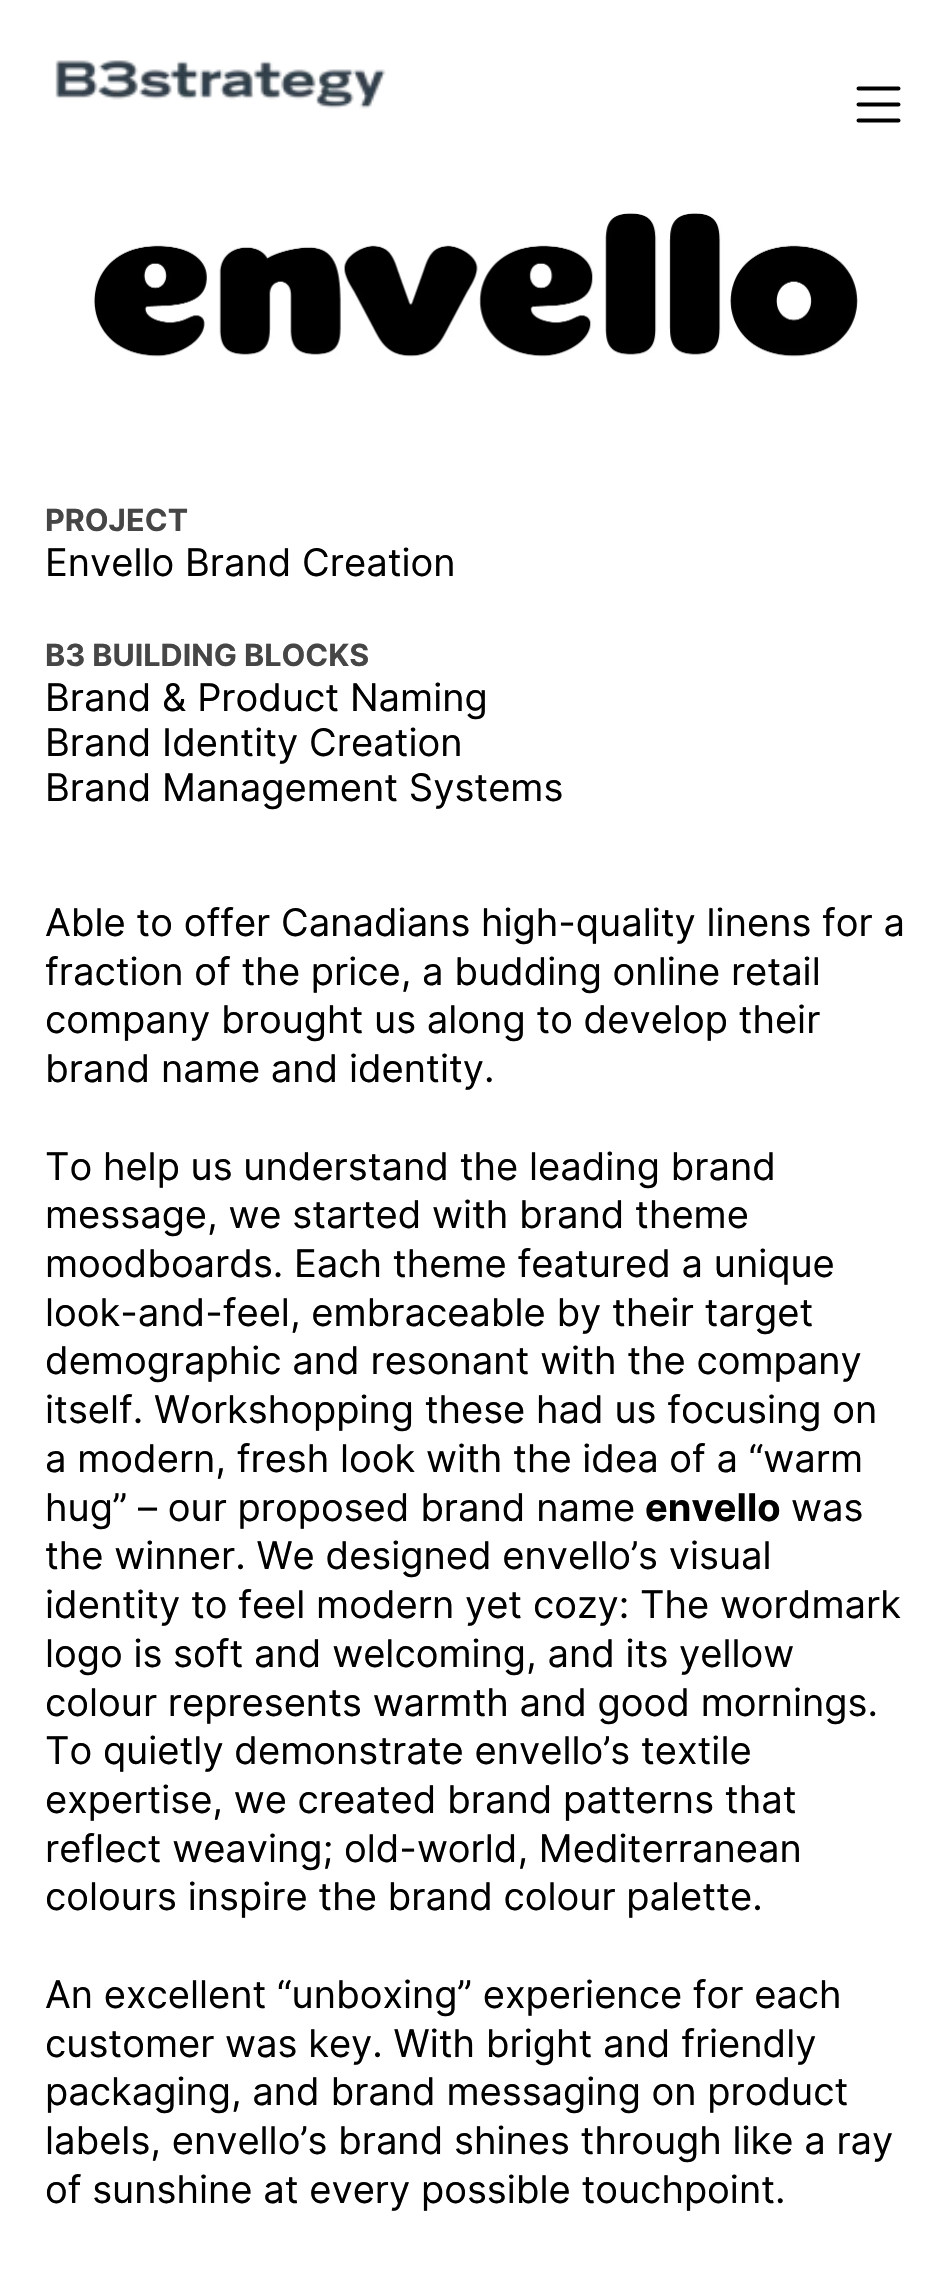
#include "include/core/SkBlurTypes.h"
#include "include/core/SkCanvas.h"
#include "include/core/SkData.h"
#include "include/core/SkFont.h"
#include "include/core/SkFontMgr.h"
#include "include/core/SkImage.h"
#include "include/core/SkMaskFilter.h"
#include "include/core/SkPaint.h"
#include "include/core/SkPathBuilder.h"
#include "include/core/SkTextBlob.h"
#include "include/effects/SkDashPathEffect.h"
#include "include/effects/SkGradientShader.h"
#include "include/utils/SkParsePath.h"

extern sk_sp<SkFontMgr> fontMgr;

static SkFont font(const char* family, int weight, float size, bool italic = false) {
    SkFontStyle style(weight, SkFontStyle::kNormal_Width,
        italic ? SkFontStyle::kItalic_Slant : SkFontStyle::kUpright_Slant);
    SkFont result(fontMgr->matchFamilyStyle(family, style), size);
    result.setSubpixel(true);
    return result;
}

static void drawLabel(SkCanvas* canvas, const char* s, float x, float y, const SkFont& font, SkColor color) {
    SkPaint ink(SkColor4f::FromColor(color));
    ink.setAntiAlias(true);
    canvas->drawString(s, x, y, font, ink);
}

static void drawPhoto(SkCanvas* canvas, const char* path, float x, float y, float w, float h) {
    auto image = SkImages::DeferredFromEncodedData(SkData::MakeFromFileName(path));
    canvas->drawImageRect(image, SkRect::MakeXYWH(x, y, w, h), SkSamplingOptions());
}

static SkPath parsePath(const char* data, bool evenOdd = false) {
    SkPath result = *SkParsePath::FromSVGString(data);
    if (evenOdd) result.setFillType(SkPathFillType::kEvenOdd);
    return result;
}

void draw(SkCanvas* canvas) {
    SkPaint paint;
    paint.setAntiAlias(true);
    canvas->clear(0xFFFFFFFF);
    drawPhoto(canvas, "assets/img1.png", 55, 60, 331, 49);
    paint.setStroke(true);
    paint.setStrokeWidth(4);
    paint.setStrokeCap(SkPaint::kRound_Cap);
    paint.setColor(0xFF000000);
    canvas->drawPath(parsePath("M858.5 88.5H898.5M858.5 104.5H898.5M858.5 120.5H898.5"), paint);
    drawPhoto(canvas, "assets/img2.png", 93, 213, 765, 144);
    SkFont font1 = font("Inter", 700, 30.5f);
    drawLabel(canvas, "PROJECT", 45, 531, font1, 0xFF464646);
    SkFont font2 = font("Inter", 400, 38.1f);
    drawLabel(canvas, "Envello Brand Creation", 45, 576, font2, 0xFF000000);
    drawLabel(canvas, "B3 BUILDING BLOCKS", 45, 666, font1, 0xFF464646);
    drawLabel(canvas, "Brand & Product Naming", 45, 711, font2, 0xFF000000);
    drawLabel(canvas, "Brand Identity Creation", 45, 756, font2, 0xFF000000);
    drawLabel(canvas, "Brand Management Systems", 45, 801, font2, 0xFF000000);
    drawLabel(canvas, "Able to offer Canadians high-quality linens for a", 45, 936, font2, 0xFF000000);
    drawLabel(canvas, "fraction of the price, a budding online retail", 45, 985, font2, 0xFF000000);
    drawLabel(canvas, "company brought us along to develop their", 45, 1033, font2, 0xFF000000);
    drawLabel(canvas, "brand name and identity.", 45, 1082, font2, 0xFF000000);
    drawLabel(canvas, "To help us understand the leading brand", 45, 1180, font2, 0xFF000000);
    drawLabel(canvas, "message, we started", 45, 1228, font2, 0xFF000000);
    drawLabel(canvas, "with brand theme", 432, 1228, font2, 0xFF000000);
    drawLabel(canvas, "moodboards. Each theme featured a unique", 45, 1277, font2, 0xFF000000);
    drawLabel(canvas, "look-and-feel, embraceable by their target", 45, 1326, font2, 0xFF000000);
    drawLabel(canvas, "demographic and resonant with the company", 45, 1374, font2, 0xFF000000);
    drawLabel(canvas, "itself. Workshopping these had us focusing on", 45, 1423, font2, 0xFF000000);
    drawLabel(canvas, "a modern, fresh look with the idea of a “warm", 45, 1472, font2, 0xFF000000);
    drawLabel(canvas, "hug” – our proposed brand name", 45, 1521, font2, 0xFF000000);
    SkFont font3 = font("Inter", 700, 38.1f);
    drawLabel(canvas, "envello", 645, 1521, font3, 0xFF000000);
    drawLabel(canvas, "was", 791, 1521, font2, 0xFF000000);
    drawLabel(canvas, "the winner. We designed envello’s visual", 45, 1569, font2, 0xFF000000);
    drawLabel(canvas, "identity to feel modern yet cozy: The wordmark", 45, 1618, font2, 0xFF000000);
    drawLabel(canvas, "logo is soft and welcoming, and its yellow", 45, 1667, font2, 0xFF000000);
    drawLabel(canvas, "colour represents warmth and good mornings.", 45, 1716, font2, 0xFF000000);
    drawLabel(canvas, "To quietly demonstrate envello’s textile", 45, 1764, font2, 0xFF000000);
    drawLabel(canvas, "expertise, we created brand patterns that", 45, 1813, font2, 0xFF000000);
    drawLabel(canvas, "reflect weaving; old-world, Mediterranean", 45, 1862, font2, 0xFF000000);
    drawLabel(canvas, "colours inspire the brand colour palette.", 45, 1910, font2, 0xFF000000);
    drawLabel(canvas, "An excellent “unboxing” experience for each", 45, 2008, font2, 0xFF000000);
    drawLabel(canvas, "customer was key. With bright and friendly", 45, 2057, font2, 0xFF000000);
    drawLabel(canvas, "packaging, and brand messaging on product", 45, 2105, font2, 0xFF000000);
    drawLabel(canvas, "labels, envello’s brand shines through like a ray", 45, 2154, font2, 0xFF000000);
    drawLabel(canvas, "of sunshine at every possible touchpoint.", 45, 2203, font2, 0xFF000000);
}
